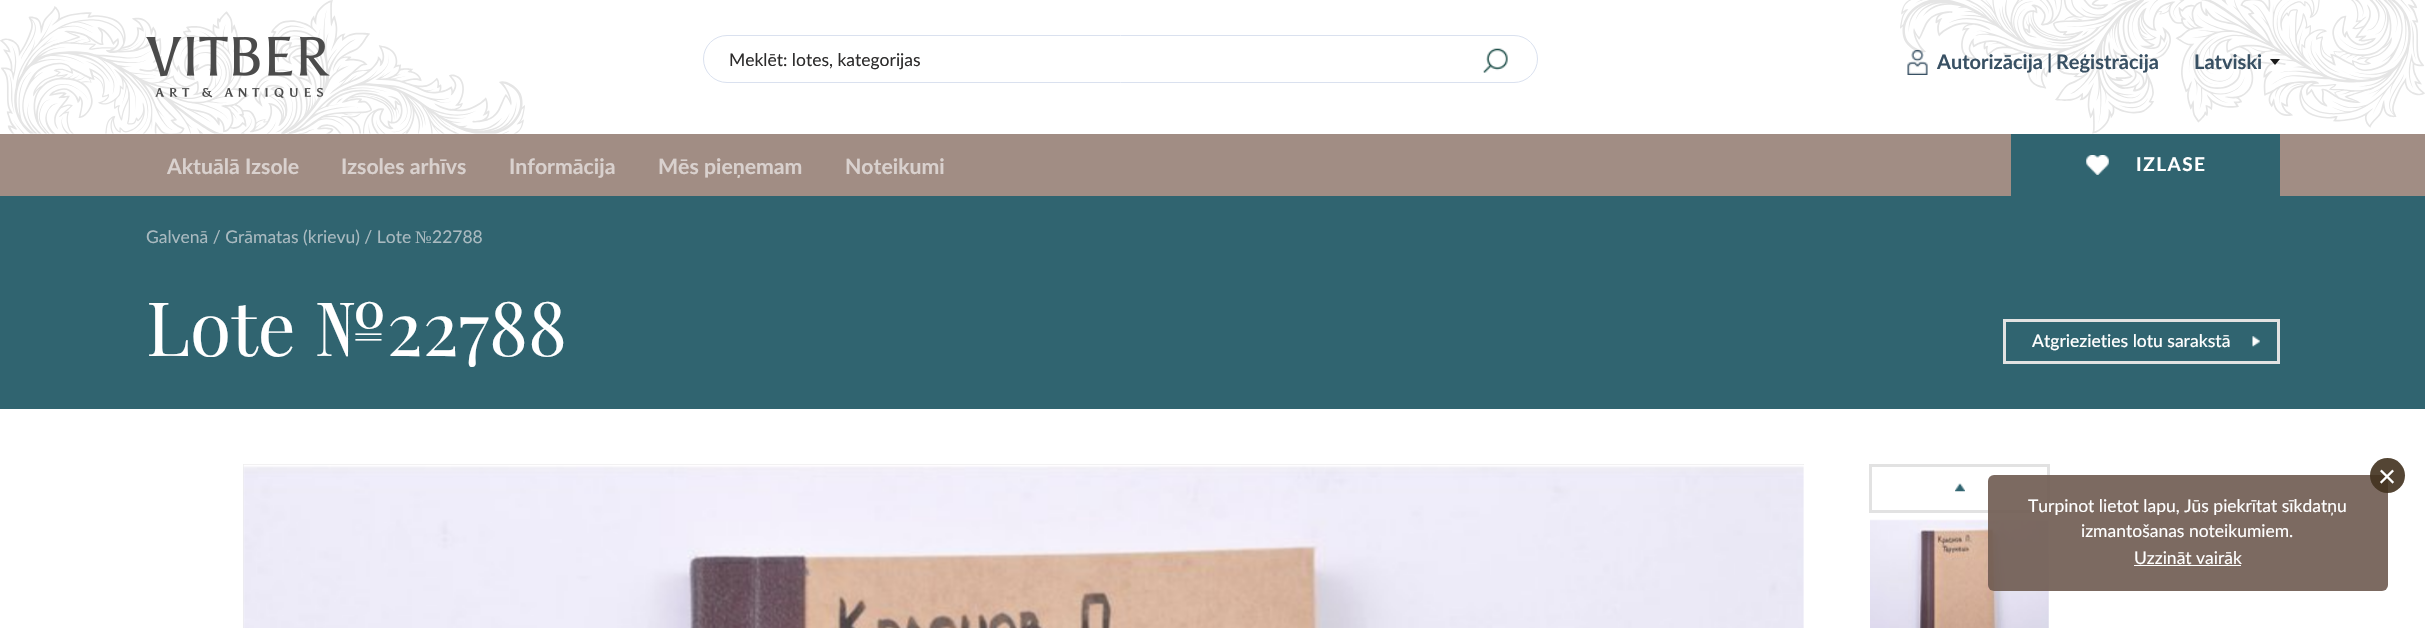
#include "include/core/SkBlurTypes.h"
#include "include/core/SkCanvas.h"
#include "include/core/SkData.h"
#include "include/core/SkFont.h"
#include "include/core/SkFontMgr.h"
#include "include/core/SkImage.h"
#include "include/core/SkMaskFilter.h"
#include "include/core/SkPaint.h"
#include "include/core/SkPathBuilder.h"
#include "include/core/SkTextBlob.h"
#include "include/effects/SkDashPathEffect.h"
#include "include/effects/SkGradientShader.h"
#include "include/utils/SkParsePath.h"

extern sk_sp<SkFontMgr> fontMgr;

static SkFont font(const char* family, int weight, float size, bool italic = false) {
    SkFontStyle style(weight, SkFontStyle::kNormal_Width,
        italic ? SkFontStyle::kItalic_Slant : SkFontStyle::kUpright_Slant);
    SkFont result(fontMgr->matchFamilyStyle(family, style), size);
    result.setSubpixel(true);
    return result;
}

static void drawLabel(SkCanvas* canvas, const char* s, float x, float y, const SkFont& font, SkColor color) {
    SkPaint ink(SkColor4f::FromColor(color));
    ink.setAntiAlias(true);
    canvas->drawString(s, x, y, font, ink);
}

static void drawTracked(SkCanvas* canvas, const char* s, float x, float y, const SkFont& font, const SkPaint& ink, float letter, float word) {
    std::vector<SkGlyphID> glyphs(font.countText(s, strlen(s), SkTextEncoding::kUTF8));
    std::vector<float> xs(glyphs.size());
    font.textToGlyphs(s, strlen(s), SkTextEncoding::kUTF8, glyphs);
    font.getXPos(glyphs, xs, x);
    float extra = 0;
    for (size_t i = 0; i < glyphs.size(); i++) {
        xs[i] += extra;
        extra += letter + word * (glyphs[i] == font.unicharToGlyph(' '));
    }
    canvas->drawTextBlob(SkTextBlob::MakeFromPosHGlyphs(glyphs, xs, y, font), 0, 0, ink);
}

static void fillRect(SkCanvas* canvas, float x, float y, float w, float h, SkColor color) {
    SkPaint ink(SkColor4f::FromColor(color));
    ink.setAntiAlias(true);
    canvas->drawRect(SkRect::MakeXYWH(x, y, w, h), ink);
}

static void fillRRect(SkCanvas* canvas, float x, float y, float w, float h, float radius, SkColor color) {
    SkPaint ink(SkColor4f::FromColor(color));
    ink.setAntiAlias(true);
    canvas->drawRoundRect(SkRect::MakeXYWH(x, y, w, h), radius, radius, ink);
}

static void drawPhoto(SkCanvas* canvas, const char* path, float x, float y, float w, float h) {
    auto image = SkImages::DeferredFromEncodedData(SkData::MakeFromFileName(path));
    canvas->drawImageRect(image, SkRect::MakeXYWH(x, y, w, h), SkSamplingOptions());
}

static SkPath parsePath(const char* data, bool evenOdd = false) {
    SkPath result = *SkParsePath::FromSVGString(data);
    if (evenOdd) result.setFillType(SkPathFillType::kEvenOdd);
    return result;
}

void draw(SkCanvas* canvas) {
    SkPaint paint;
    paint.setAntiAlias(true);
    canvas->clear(0xFFFFFFFF);
    drawPhoto(canvas, "assets/img1.png", 0, 0, 525, 134);
    drawPhoto(canvas, "assets/img2.png", 1900, 0, 525, 134);
    drawPhoto(canvas, "assets/img3.png", 146, 36, 184, 62);
    paint.setStroke(true);
    paint.setStrokeWidth(1);
    paint.setColor(0xFFDAE1EF);
    canvas->drawRoundRect(SkRect::MakeXYWH(703.5f, 35.5f, 834, 47), 23.5f, 23.5f, paint);
    SkFont font1 = font("Lato", 400, 17.5f);
    drawLabel(canvas, "Meklēt: lotes, kategorijas", 729, 66, font1, 0xFF2D2C2C);
    drawPhoto(canvas, "assets/img4.png", 1483, 48, 25, 25);
    drawPhoto(canvas, "assets/img5.png", 1907, 50, 21, 25);
    SkFont font2 = font("Lato", 700, 20);
    drawLabel(canvas, "Autorizācija", 1937, 69, font2, 0xFF385063);
    drawLabel(canvas, "|", 2047, 69, font2, 0xFF385063);
    drawLabel(canvas, "Reģistrācija", 2056, 69, font2, 0xFF385063);
    drawLabel(canvas, "Latviski", 2194, 69, font2, 0xFF385063);
    paint.setStroke(false);
    paint.setColor(0xFF1A1A1A);
    canvas->drawPath(parsePath("M2270 59H2280L2275 65Z"), paint);
    fillRect(canvas, 0, 134, 2425, 62, 0xFFA18D84);
    SkFont font3 = font("Lato", 700, 21.25f);
    drawLabel(canvas, "Aktuālā Izsole", 167, 174, font3, 0xFFD9D1CE);
    drawLabel(canvas, "Izsoles arhīvs", 341, 174, font3, 0xFFD9D1CE);
    drawLabel(canvas, "Informācija", 509, 174, font3, 0xFFD9D1CE);
    drawLabel(canvas, "Mēs pieņemam", 658, 174, font3, 0xFFD9D1CE);
    drawLabel(canvas, "Noteikumi", 845, 174, font3, 0xFFD9D1CE);
    fillRect(canvas, 2011, 134, 269, 62, 0xFF306470);
    drawPhoto(canvas, "assets/img6.png", 2086, 155, 23, 20);
    SkFont font4 = font("Lato", 700, 19);
    paint.setColor(0xFFFFFFFF);
    drawTracked(canvas, "IZLASE", 2136, 171, font4, paint, 1.5f, 0);
    fillRect(canvas, 0, 196, 2425, 213, 0xFF306470);
    drawLabel(canvas, "Galvenā / Grāmatas (krievu) / Lote", 146, 243, font1, 0xFFA9BAC0);
    SkFont font5 = font("Liberation Serif", 400, 17.5f);
    drawLabel(canvas, "№", 415, 243, font5, 0xFFA9BAC0);
    drawLabel(canvas, "22788", 432, 243, font1, 0xFFA9BAC0);
    SkFont font6 = font("Playfair Display", 400, 75);
    drawLabel(canvas, "Lote №22788", 146, 356, font6, 0xFFFFFFFF);
    paint.setStroke(true);
    paint.setStrokeWidth(3);
    paint.setColor(0xFFE2E2E2);
    canvas->drawRect(SkRect::MakeXYWH(2004.5f, 320.5f, 274, 42), paint);
    SkFont font7 = font("Lato", 500, 17.5f);
    drawLabel(canvas, "Atgriezieties lotu sarakstā", 2032, 347, font7, 0xFFFFFFFF);
    drawPhoto(canvas, "assets/img7.png", 2252, 336, 8, 11);
    canvas->save();
    canvas->clipRect(SkRect::MakeXYWH(243, 464, 1561, 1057));
    paint.setStrokeWidth(1);
    paint.setColor(0xFFEEEEEE);
    canvas->drawRect(SkRect::MakeXYWH(243.5f, 464.5f, 1561, 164), paint);
    canvas->restore();
    drawPhoto(canvas, "assets/img8.png", 243, 464, 1561, 164);
    paint.setStrokeWidth(3);
    paint.setColor(0xFFE2E2E2);
    canvas->drawRect(SkRect::MakeXYWH(1870.5f, 465.5f, 178, 46), paint);
    drawPhoto(canvas, "assets/img9.png", 1955, 483, 10, 9);
    drawPhoto(canvas, "assets/img10.png", 1870, 519, 179, 109);
    fillRRect(canvas, 1988, 475, 400, 116, 6, 0xE66E5A50);
    paint.setStroke(false);
    paint.setColor(0xE641311E);
    canvas->drawCircle(2387.5f, 475.5f, 17.5f, paint);
    SkFont font8 = font("Lato", 400, 31);
    drawLabel(canvas, "×", 2378, 487, font8, 0xFFFFFFFF);
    drawLabel(canvas, "Turpinot lietot lapu, Jūs piekrītat sīkdatņu", 2028, 512, font1, 0xFFFFFFFF);
    drawLabel(canvas, "izmantošanas noteikumiem.", 2081, 537, font1, 0xFFFFFFFF);
    drawLabel(canvas, "Uzzināt vairāk", 2134, 564, font1, 0xFFFFFFFF);
    fillRect(canvas, 2134, 565, 107, 1, 0xFFFFFFFF);
}
